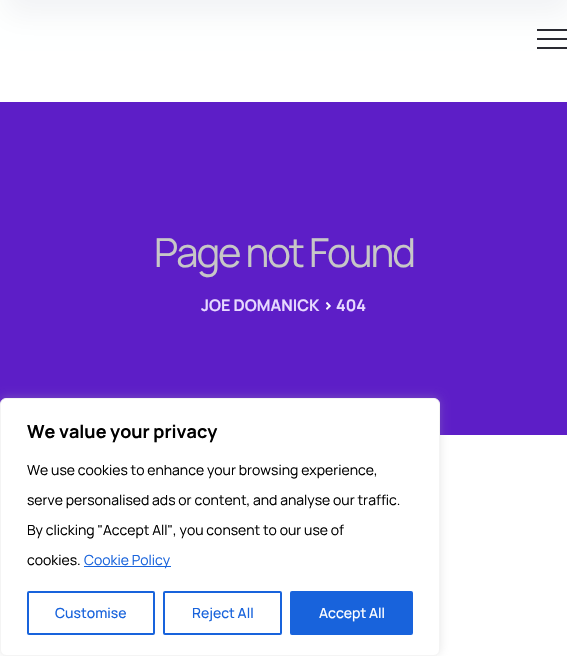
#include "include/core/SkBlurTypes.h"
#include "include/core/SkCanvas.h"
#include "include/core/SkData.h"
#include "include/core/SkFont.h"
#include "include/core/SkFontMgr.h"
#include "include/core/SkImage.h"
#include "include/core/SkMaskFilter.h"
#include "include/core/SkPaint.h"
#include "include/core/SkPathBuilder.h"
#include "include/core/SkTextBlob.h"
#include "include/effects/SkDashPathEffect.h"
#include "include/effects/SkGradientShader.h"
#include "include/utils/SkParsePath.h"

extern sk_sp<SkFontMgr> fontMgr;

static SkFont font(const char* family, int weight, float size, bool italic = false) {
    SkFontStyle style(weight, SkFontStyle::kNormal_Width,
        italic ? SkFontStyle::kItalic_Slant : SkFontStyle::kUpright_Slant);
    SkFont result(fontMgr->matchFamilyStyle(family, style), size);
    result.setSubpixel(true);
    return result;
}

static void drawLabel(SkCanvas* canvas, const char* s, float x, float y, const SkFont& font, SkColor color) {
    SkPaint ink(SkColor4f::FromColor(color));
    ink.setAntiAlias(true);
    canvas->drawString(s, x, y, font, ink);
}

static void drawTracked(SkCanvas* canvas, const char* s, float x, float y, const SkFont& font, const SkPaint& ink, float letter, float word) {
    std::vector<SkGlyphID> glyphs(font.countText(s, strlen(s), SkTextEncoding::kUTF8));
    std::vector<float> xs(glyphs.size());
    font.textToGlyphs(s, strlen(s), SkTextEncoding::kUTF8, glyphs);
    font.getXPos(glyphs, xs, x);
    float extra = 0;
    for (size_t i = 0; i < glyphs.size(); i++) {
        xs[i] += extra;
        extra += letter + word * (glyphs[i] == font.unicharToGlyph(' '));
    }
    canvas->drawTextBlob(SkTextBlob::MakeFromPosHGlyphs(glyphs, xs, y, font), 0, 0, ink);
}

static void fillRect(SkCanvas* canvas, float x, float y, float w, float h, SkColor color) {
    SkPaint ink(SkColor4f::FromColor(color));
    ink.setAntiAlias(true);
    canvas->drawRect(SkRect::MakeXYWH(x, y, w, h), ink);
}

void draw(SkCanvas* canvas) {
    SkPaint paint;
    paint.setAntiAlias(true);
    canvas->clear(0xFFFFFFFF);
    fillRect(canvas, 537, 29, 30, 2, 0xFF292930);
    fillRect(canvas, 537, 38, 30, 2, 0xFF292930);
    fillRect(canvas, 537, 47, 30, 2, 0xFF292930);
    paint.setColor(0x0D050D36);
    paint.setMaskFilter(SkMaskFilter::MakeBlur(kNormal_SkBlurStyle, 15));
    canvas->drawRect(SkRect::MakeXYWH(5, -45, 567, 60), paint);
    paint.setMaskFilter(nullptr);
    fillRect(canvas, 0, 102, 567, 333, 0xFF5D1EC7);
    SkFont font1 = font("Manrope", 400, 40);
    paint.setColor(0xFFC7C7C7);
    drawTracked(canvas, "Page not Found", 154, 267, font1, paint, -2, 0);
    SkFont font2 = font("Manrope", 700, 16);
    drawLabel(canvas, "JOE DOMANICK", 201, 311, font2, 0xFFE7D9FF);
    drawLabel(canvas, ">", 323, 311, font2, 0xFFFFFFFF);
    drawLabel(canvas, "404", 336, 311, font2, 0xFFE7D9FF);
    paint.setColor(0x4DACABAB);
    paint.setMaskFilter(SkMaskFilter::MakeBlur(kNormal_SkBlurStyle, 5));
    canvas->drawRoundRect(SkRect::MakeXYWH(0, 397, 440, 258), 6, 6, paint);
    paint.setMaskFilter(nullptr);
    paint.setColor(0xFFFFFFFF);
    canvas->drawRoundRect(SkRect::MakeXYWH(0.5f, 398.5f, 439, 257), 5.5f, 5.5f, paint);
    paint.setStroke(true);
    paint.setStrokeWidth(1);
    paint.setColor(0xFFF4F4F4);
    canvas->drawRoundRect(SkRect::MakeXYWH(0.5f, 398.5f, 439, 257), 5.5f, 5.5f, paint);
    SkFont font3 = font("Manrope", 700, 18);
    drawLabel(canvas, "We value your privacy", 27, 438, font3, 0xFF000000);
    SkFont font4 = font("Manrope", 400, 14);
    drawLabel(canvas, "We use cookies to enhance your browsing experience,", 27, 475, font4, 0xFF000000);
    drawLabel(canvas, "serve personalised ads or content, and analyse our traffic.", 27, 505, font4, 0xFF000000);
    drawLabel(canvas, "By clicking \"Accept All\", you consent to our use of", 27, 535, font4, 0xFF000000);
    drawLabel(canvas, "cookies.", 27, 565, font4, 0xFF000000);
    fillRect(canvas, 84, 566, 87, 1, 0xFF1863DC);
    drawLabel(canvas, "Cookie Policy", 84, 565, font4, 0xFF1863DC);
    paint.setStrokeWidth(2);
    paint.setColor(0xFF1863DC);
    canvas->drawRoundRect(SkRect::MakeXYWH(28, 592, 126, 42), 1, 1, paint);
    SkFont font5 = font("Manrope", 500, 14);
    drawLabel(canvas, "Customise", 55, 618, font5, 0xFF1863DC);
    canvas->drawRoundRect(SkRect::MakeXYWH(164, 592, 117, 42), 1, 1, paint);
    drawLabel(canvas, "Reject All", 192, 618, font5, 0xFF1863DC);
    paint.setStroke(false);
    canvas->drawRoundRect(SkRect::MakeXYWH(291, 592, 121, 42), 1, 1, paint);
    paint.setStroke(true);
    canvas->drawRoundRect(SkRect::MakeXYWH(291, 592, 121, 42), 1, 1, paint);
    drawLabel(canvas, "Accept All", 319, 618, font5, 0xFFFFFFFF);
}
